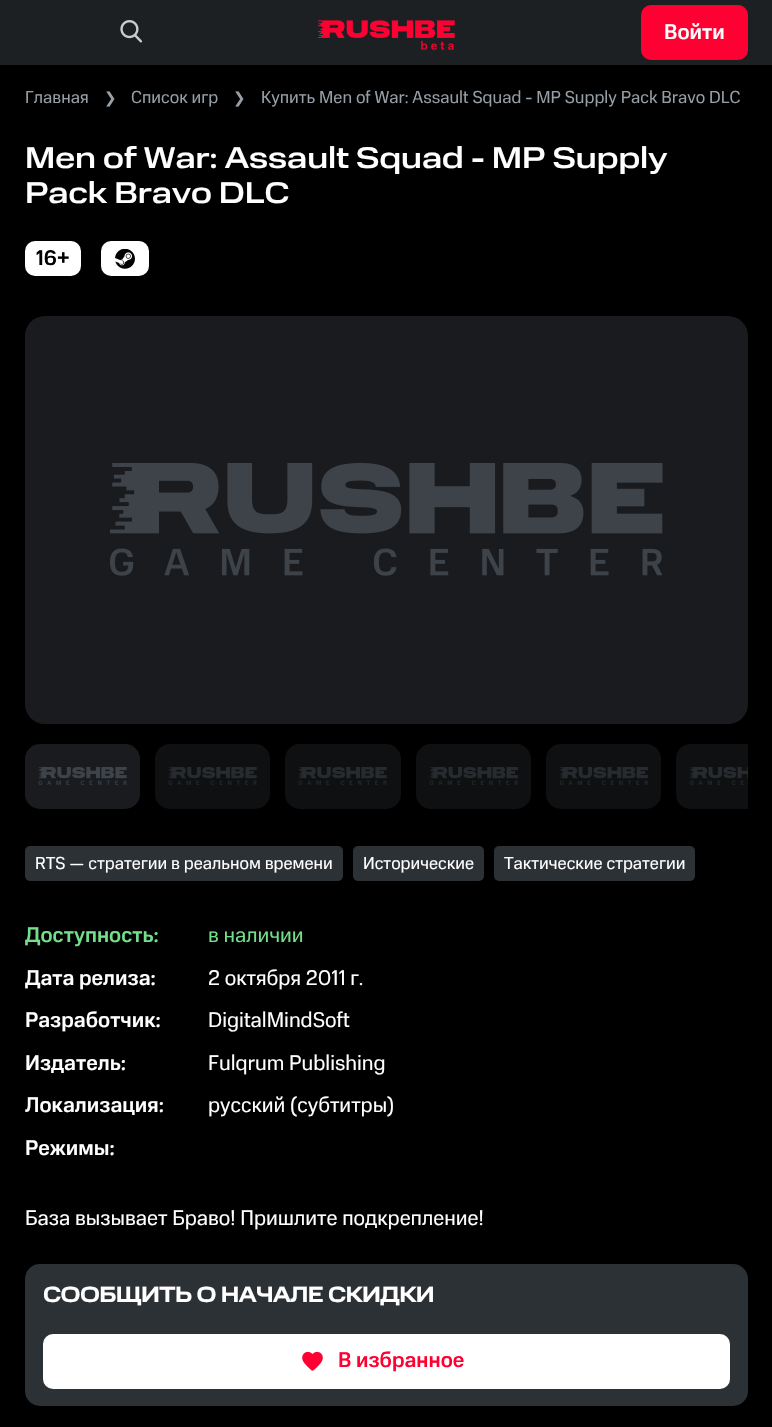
#include "include/core/SkBlurTypes.h"
#include "include/core/SkCanvas.h"
#include "include/core/SkData.h"
#include "include/core/SkFont.h"
#include "include/core/SkFontMgr.h"
#include "include/core/SkImage.h"
#include "include/core/SkMaskFilter.h"
#include "include/core/SkPaint.h"
#include "include/core/SkPathBuilder.h"
#include "include/core/SkTextBlob.h"
#include "include/effects/SkDashPathEffect.h"
#include "include/effects/SkGradientShader.h"
#include "include/utils/SkParsePath.h"

extern sk_sp<SkFontMgr> fontMgr;

static SkFont font(const char* family, int weight, float size, bool italic = false) {
    SkFontStyle style(weight, SkFontStyle::kNormal_Width,
        italic ? SkFontStyle::kItalic_Slant : SkFontStyle::kUpright_Slant);
    SkFont result(fontMgr->matchFamilyStyle(family, style), size);
    result.setSubpixel(true);
    return result;
}

static void drawLabel(SkCanvas* canvas, const char* s, float x, float y, const SkFont& font, SkColor color) {
    SkPaint ink(SkColor4f::FromColor(color));
    ink.setAntiAlias(true);
    canvas->drawString(s, x, y, font, ink);
}

static void fillRect(SkCanvas* canvas, float x, float y, float w, float h, SkColor color) {
    SkPaint ink(SkColor4f::FromColor(color));
    ink.setAntiAlias(true);
    canvas->drawRect(SkRect::MakeXYWH(x, y, w, h), ink);
}

static void fillRRect(SkCanvas* canvas, float x, float y, float w, float h, float radius, SkColor color) {
    SkPaint ink(SkColor4f::FromColor(color));
    ink.setAntiAlias(true);
    canvas->drawRoundRect(SkRect::MakeXYWH(x, y, w, h), radius, radius, ink);
}

static void drawPhoto(SkCanvas* canvas, const char* path, float x, float y, float w, float h) {
    auto image = SkImages::DeferredFromEncodedData(SkData::MakeFromFileName(path));
    canvas->drawImageRect(image, SkRect::MakeXYWH(x, y, w, h), SkSamplingOptions());
}

static SkPath parsePath(const char* data, bool evenOdd = false) {
    SkPath result = *SkParsePath::FromSVGString(data);
    if (evenOdd) result.setFillType(SkPathFillType::kEvenOdd);
    return result;
}

void draw(SkCanvas* canvas) {
    SkPaint paint;
    paint.setAntiAlias(true);
    canvas->clear(0xFF000000);
    fillRect(canvas, 0, 0, 772, 65, 0xFF1D2023);
    drawPhoto(canvas, "assets/img1.png", 318, 20, 137, 30);
    drawPhoto(canvas, "assets/img2.png", 120, 20, 23, 23);
    fillRRect(canvas, 641, 5, 107, 55, 10, 0xFFFF0032);
    SkFont font1 = font("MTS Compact", 500, 21.25f);
    drawLabel(canvas, "Войти", 664, 39, font1, 0xFFFFFFFF);
    SkFont font2 = font("MTS Compact", 400, 17.5f);
    drawLabel(canvas, "Главная", 25, 103, font2, 0xFF969FA8);
    SkFont font3 = font("DejaVu Sans", 400, 15);
    drawLabel(canvas, "❯", 104, 103, font3, 0xFF969FA8);
    drawLabel(canvas, "Список игр", 131, 103, font2, 0xFF969FA8);
    drawLabel(canvas, "❯", 233, 103, font3, 0xFF969FA8);
    drawLabel(canvas, "Купить Men of War: Assault Squad - MP Supply Pack Bravo DLC", 261, 103, font2, 0xFF969FA8);
    SkFont font4 = font("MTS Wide", 500, 30);
    drawLabel(canvas, "Men of War: Assault Squad - MP Supply", 25, 168, font4, 0xFFFFFFFF);
    drawLabel(canvas, "Pack Bravo DLC", 25, 203, font4, 0xFFFFFFFF);
    fillRRect(canvas, 25, 241, 56, 35, 10, 0xFFFFFFFF);
    drawLabel(canvas, "16+", 36, 265, font1, 0xFF000000);
    fillRRect(canvas, 101, 241, 48, 35, 10, 0xFFFFFFFF);
    drawPhoto(canvas, "assets/img3.png", 115, 249, 20, 20);
    fillRRect(canvas, 25, 316, 723, 408, 20, 0xFF191B1E);
    drawPhoto(canvas, "assets/img4.png", 110, 463, 553, 113);
    fillRRect(canvas, 25, 744, 115, 65, 15, 0xFF191B1E);
    drawPhoto(canvas, "assets/img5.png", 38, 767, 89, 18);
    fillRRect(canvas, 155, 744, 115, 65, 15, 0xFF0F1012);
    drawPhoto(canvas, "assets/img6.png", 168, 767, 89, 18);
    fillRRect(canvas, 285, 744, 116, 65, 15, 0xFF0F1012);
    drawPhoto(canvas, "assets/img6.png", 298, 767, 89, 18);
    fillRRect(canvas, 416, 744, 115, 65, 15, 0xFF0F1012);
    drawPhoto(canvas, "assets/img7.png", 429, 767, 89, 18);
    fillRRect(canvas, 546, 744, 115, 65, 15, 0xFF0F1012);
    drawPhoto(canvas, "assets/img7.png", 559, 767, 89, 18);
    paint.setColor(0xFF0F1012);
    canvas->drawPath(parsePath("M691 744H748V809H691C682.5 809 676 802.5 676 794V759C676 750.5 682.5 744 691 744Z"), paint);
    drawPhoto(canvas, "assets/img8.png", 689, 767, 59, 18);
    fillRRect(canvas, 25, 846, 318, 35, 5, 0xFF2C3136);
    drawLabel(canvas, "RTS — стратегии в реальном времени", 35, 869, font2, 0xFFFFFFFF);
    fillRRect(canvas, 353, 846, 131, 35, 5, 0xFF2C3136);
    drawLabel(canvas, "Исторические", 363, 869, font2, 0xFFFFFFFF);
    fillRRect(canvas, 494, 846, 201, 35, 5, 0xFF2C3136);
    drawLabel(canvas, "Тактические стратегии", 504, 869, font2, 0xFFFFFFFF);
    drawLabel(canvas, "Доступность:", 25, 942, font1, 0xFF74DF8B);
    SkFont font5 = font("MTS Compact", 400, 21.25f);
    drawLabel(canvas, "в наличии", 208, 942, font5, 0xFF74DF8B);
    drawLabel(canvas, "Дата релиза:", 25, 985, font1, 0xFFFFFFFF);
    drawLabel(canvas, "2 октября 2011 г.", 208, 985, font5, 0xFFFFFFFF);
    drawLabel(canvas, "Разработчик:", 25, 1027, font1, 0xFFFFFFFF);
    drawLabel(canvas, "DigitalMindSoft", 208, 1027, font5, 0xFFFFFFFF);
    drawLabel(canvas, "Издатель:", 25, 1070, font1, 0xFFFFFFFF);
    drawLabel(canvas, "Fulqrum Publishing", 208, 1070, font5, 0xFFFFFFFF);
    drawLabel(canvas, "Локализация:", 25, 1112, font1, 0xFFFFFFFF);
    drawLabel(canvas, "русский (субтитры)", 208, 1112, font5, 0xFFFFFFFF);
    drawLabel(canvas, "Режимы:", 25, 1155, font1, 0xFFFFFFFF);
    drawLabel(canvas, "База вызывает Браво! Пришлите подкрепление!", 25, 1225, font5, 0xFFFFFFFF);
    fillRRect(canvas, 25, 1264, 723, 142, 15, 0xFF2C3136);
    SkFont font6 = font("MTS Wide", 700, 21.25f);
    drawLabel(canvas, "СООБЩИТЬ О НАЧАЛЕ СКИДКИ", 43, 1302, font6, 0xFFFFFFFF);
    fillRRect(canvas, 43, 1334, 687, 55, 10, 0xFFFFFFFF);
    drawPhoto(canvas, "assets/img9.png", 302, 1351, 21, 20);
    drawLabel(canvas, "В избранное", 338, 1367, font1, 0xFFFF0032);
}
